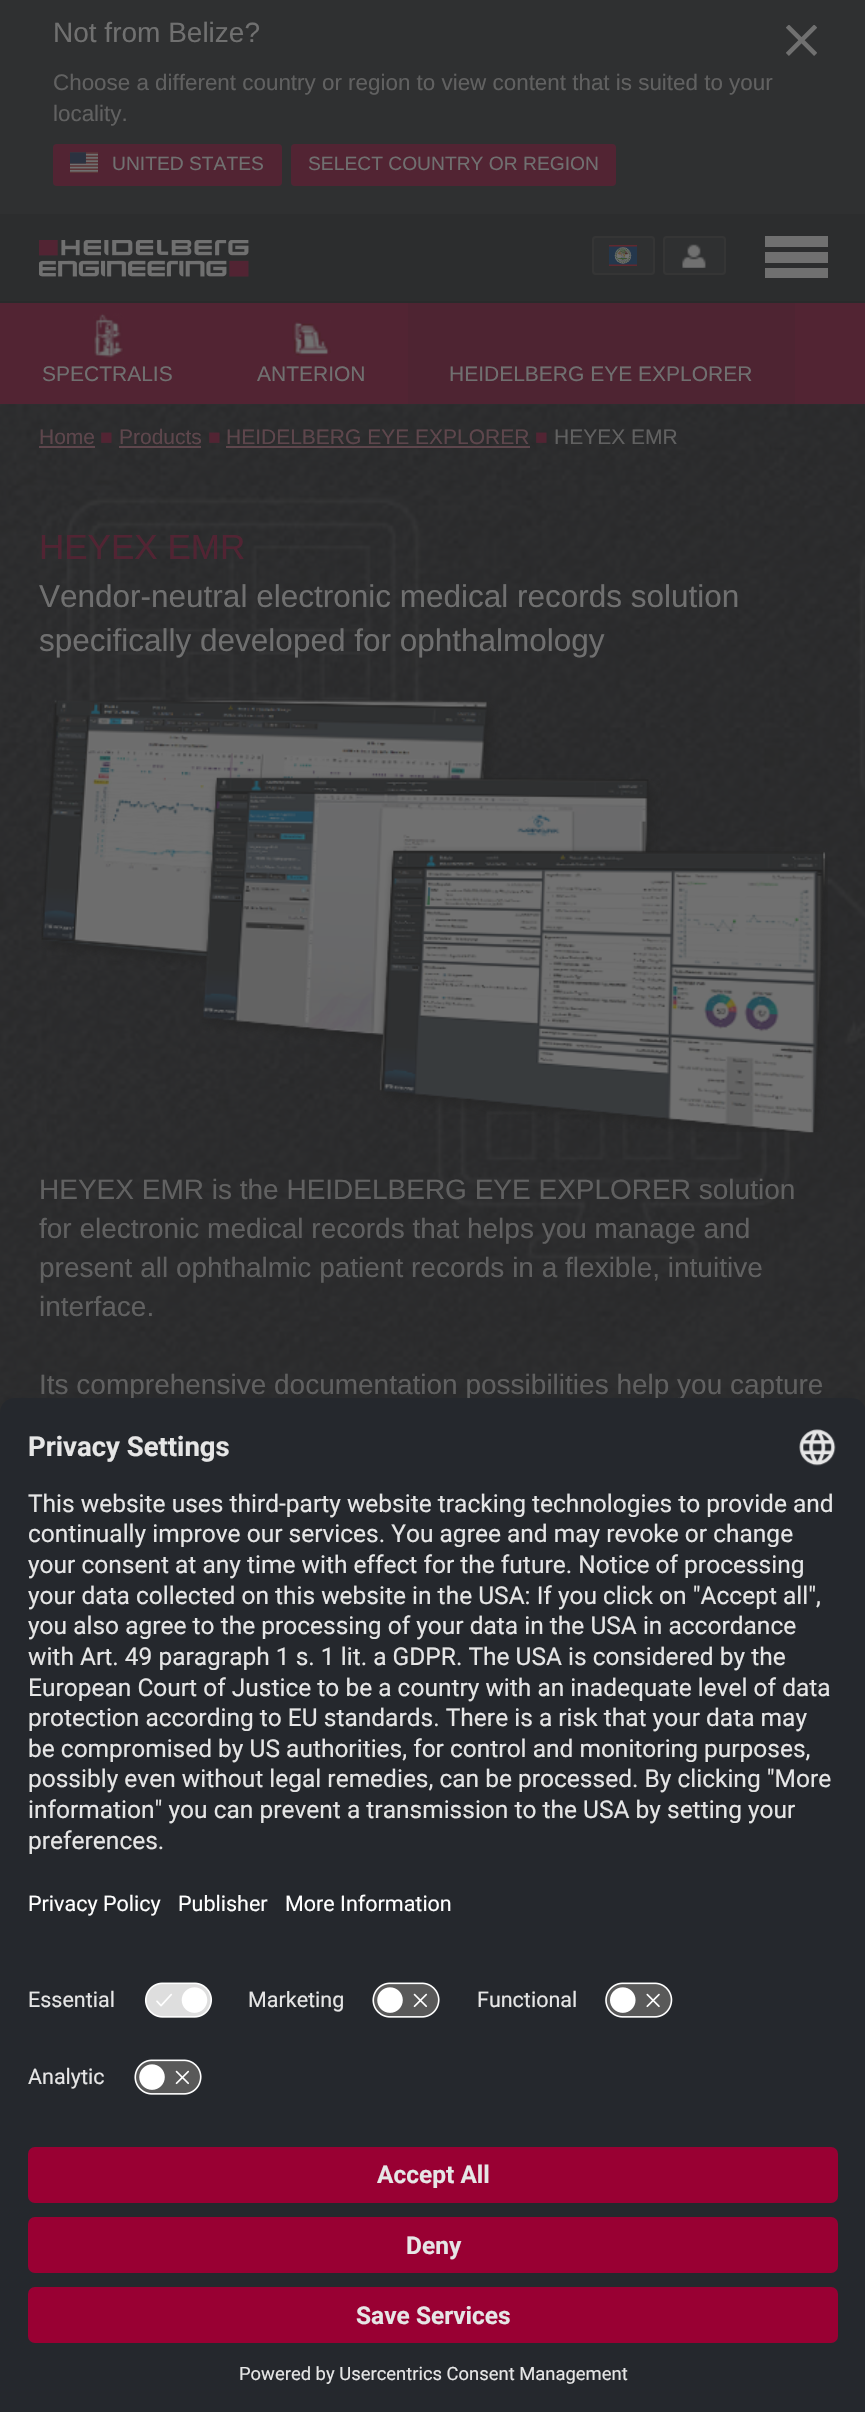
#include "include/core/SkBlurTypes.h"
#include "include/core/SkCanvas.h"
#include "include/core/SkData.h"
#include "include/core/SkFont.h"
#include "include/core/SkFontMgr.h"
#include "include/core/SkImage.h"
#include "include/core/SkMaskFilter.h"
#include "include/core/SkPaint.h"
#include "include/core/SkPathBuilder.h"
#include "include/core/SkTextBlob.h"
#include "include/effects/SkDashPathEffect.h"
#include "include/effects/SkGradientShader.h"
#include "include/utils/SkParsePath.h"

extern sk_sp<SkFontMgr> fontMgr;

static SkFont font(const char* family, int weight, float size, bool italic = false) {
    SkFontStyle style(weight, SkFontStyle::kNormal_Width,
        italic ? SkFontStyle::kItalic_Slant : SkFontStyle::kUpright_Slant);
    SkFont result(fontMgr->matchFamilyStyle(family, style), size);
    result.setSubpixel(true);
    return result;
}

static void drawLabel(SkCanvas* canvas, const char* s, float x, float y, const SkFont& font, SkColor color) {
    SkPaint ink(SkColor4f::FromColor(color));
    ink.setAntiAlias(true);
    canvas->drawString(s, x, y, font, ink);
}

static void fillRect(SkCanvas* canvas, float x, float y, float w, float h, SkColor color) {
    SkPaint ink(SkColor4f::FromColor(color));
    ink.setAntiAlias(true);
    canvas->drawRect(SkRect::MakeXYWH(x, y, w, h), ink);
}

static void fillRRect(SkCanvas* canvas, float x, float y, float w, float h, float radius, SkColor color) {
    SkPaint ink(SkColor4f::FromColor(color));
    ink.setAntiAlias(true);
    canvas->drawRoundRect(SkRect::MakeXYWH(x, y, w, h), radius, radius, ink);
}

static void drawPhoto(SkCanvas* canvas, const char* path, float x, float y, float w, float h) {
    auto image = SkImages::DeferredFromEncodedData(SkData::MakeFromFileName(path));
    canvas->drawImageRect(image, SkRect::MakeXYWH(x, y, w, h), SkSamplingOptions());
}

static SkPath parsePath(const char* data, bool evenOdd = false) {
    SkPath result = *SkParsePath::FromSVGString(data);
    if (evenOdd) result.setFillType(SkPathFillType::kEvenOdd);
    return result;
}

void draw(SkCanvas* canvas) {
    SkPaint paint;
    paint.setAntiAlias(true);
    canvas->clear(0xFF2F3031);
    SkFont font1 = font("Liberation Sans", 400, 28);
    drawLabel(canvas, "Not from Belize?", 53, 42, font1, 0xFF707070);
    SkFont font2 = font("Liberation Sans", 400, 22.4f);
    drawLabel(canvas, "Choose a different country or region to view content that is suited to your", 53, 90, font2, 0xFF616161);
    drawLabel(canvas, "locality.", 53, 121, font2, 0xFF616161);
    drawPhoto(canvas, "assets/img1.png", 786, 25, 31, 31);
    paint.setColor(0xFF522433);
    canvas->drawRoundRect(SkRect::MakeXYWH(54, 145, 227, 40), 3, 3, paint);
    paint.setStroke(true);
    paint.setStrokeWidth(2);
    canvas->drawRoundRect(SkRect::MakeXYWH(54, 145, 227, 40), 3, 3, paint);
    drawPhoto(canvas, "assets/img2.png", 70, 152, 28, 21);
    SkFont font3 = font("Liberation Sans", 400, 19.25f);
    drawLabel(canvas, "UNITED STATES", 112, 170, font3, 0xFF707070);
    paint.setStroke(false);
    canvas->drawRoundRect(SkRect::MakeXYWH(292, 145, 323, 40), 3, 3, paint);
    paint.setStroke(true);
    canvas->drawRoundRect(SkRect::MakeXYWH(292, 145, 323, 40), 3, 3, paint);
    drawLabel(canvas, "SELECT COUNTRY OR REGION", 308, 170, font3, 0xFF707070);
    fillRect(canvas, 0, 214, 865, 87, 0xFF2C2D2E);
    fillRect(canvas, 0, 301, 865, 2, 0xFF292A2B);
    drawPhoto(canvas, "assets/img3.png", 39, 240, 210, 37);
    fillRect(canvas, 765, 236, 63, 11, 0xFF707070);
    fillRect(canvas, 765, 252, 63, 11, 0xFF707070);
    fillRect(canvas, 765, 268, 63, 10, 0xFF707070);
    paint.setStroke(false);
    paint.setColor(0xFF2F3031);
    canvas->drawRoundRect(SkRect::MakeXYWH(593, 237, 61, 37), 3, 3, paint);
    paint.setStroke(true);
    paint.setColor(0xFF353535);
    canvas->drawRoundRect(SkRect::MakeXYWH(593, 237, 61, 37), 3, 3, paint);
    drawPhoto(canvas, "assets/img4.png", 609, 245, 28, 21);
    paint.setStroke(false);
    paint.setColor(0xFF2F3031);
    canvas->drawRoundRect(SkRect::MakeXYWH(664, 237, 61, 37), 3, 3, paint);
    paint.setStroke(true);
    paint.setColor(0xFF353535);
    canvas->drawRoundRect(SkRect::MakeXYWH(664, 237, 61, 37), 3, 3, paint);
    drawPhoto(canvas, "assets/img5.png", 682, 244, 24, 24);
    fillRect(canvas, 0, 303, 865, 101, 0xFF522433);
    drawPhoto(canvas, "assets/img6.png", 93, 313, 31, 46);
    SkFont font4 = font("Liberation Sans", 400, 21);
    drawLabel(canvas, "SPECTRALIS", 42, 381, font4, 0xFF707070);
    drawPhoto(canvas, "assets/img7.png", 292, 320, 39, 37);
    drawLabel(canvas, "ANTERION", 257, 381, font4, 0xFF707070);
    fillRect(canvas, 408, 303, 387, 101, 0xFF4E2432);
    drawLabel(canvas, "HEIDELBERG EYE EXPLORER", 449, 381, font4, 0xFF707070);
    drawPhoto(canvas, "assets/img8.png", 0, 404, 865, 1008);
    drawLabel(canvas, "Home", 39, 444, font4, 0xFF5E464C);
    fillRect(canvas, 39, 446, 56, 2, 0xFF5E464C);
    drawLabel(canvas, "■", 100, 444, font4, 0xFF522433);
    drawLabel(canvas, "Products", 119, 444, font4, 0xFF5E464C);
    fillRect(canvas, 119, 446, 82, 2, 0xFF5E464C);
    drawLabel(canvas, "■", 208, 444, font4, 0xFF522433);
    drawLabel(canvas, "HEIDELBERG EYE EXPLORER", 226, 444, font4, 0xFF5E464C);
    fillRect(canvas, 226, 446, 304, 2, 0xFF5E464C);
    drawLabel(canvas, "■", 535, 444, font4, 0xFF522433);
    drawLabel(canvas, "HEYEX EMR", 554, 444, font4, 0xFF616161);
    SkFont font5 = font("Liberation Sans", 400, 35);
    drawLabel(canvas, "HEYEX EMR", 39, 559, font5, 0xFF522433);
    SkFont font6 = font("Liberation Sans", 400, 31.5f);
    drawLabel(canvas, "Vendor-neutral electronic medical records solution", 39, 607, font6, 0xFF707070);
    drawLabel(canvas, "specifically developed for ophthalmology", 39, 651, font6, 0xFF707070);
    drawPhoto(canvas, "assets/img9.png", 41, 699, 787, 434);
    drawLabel(canvas, "HEYEX EMR is the HEIDELBERG EYE EXPLORER solution", 39, 1199, font1, 0xFF616161);
    drawLabel(canvas, "for electronic medical records that helps you manage and", 39, 1238, font1, 0xFF616161);
    drawLabel(canvas, "present all ophthalmic patient records in a flexible, intuitive", 39, 1277, font1, 0xFF616161);
    drawLabel(canvas, "interface.", 39, 1316, font1, 0xFF616161);
    drawLabel(canvas, "Its comprehensive documentation possibilities help you capture", 39, 1394, font1, 0xFF616161);
    paint.setStroke(false);
    paint.setColor(0x4D000000);
    paint.setMaskFilter(SkMaskFilter::MakeBlur(kNormal_SkBlurStyle, 24.5f));
    canvas->drawRoundRect(SkRect::MakeXYWH(0, 1433, 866, 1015), 14, 14, paint);
    paint.setMaskFilter(nullptr);
    paint.setColor(0xFF25282D);
    canvas->drawPath(parsePath("M14 1398H852C859.5 1398 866 1404.5 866 1412V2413H0V1412C0 1404.5 6.5 1398 14 1398Z"), paint);
    SkFont font7 = font("Roboto", 700, 27.5f);
    drawLabel(canvas, "Privacy Settings", 28, 1456, font7, 0xFFE6E6E6);
    drawPhoto(canvas, "assets/img10.png", 799, 1429, 37, 37);
    SkFont font8 = font("Roboto", 400, 24.5f);
    drawLabel(canvas, "This website uses third-party website tracking technologies to provide and", 28, 1512, font8, 0xFFE6E6E6);
    drawLabel(canvas, "continually improve our services. You agree and may revoke or change", 28, 1542, font8, 0xFFE6E6E6);
    drawLabel(canvas, "your consent at any time with effect for the future. Notice of processing", 28, 1573, font8, 0xFFE6E6E6);
    drawLabel(canvas, "your data collected on this website in the USA: If you click on \"Accept all\",", 28, 1604, font8, 0xFFE6E6E6);
    drawLabel(canvas, "you also agree to the processing of your data in the USA in accordance", 28, 1634, font8, 0xFFE6E6E6);
    drawLabel(canvas, "with Art. 49 paragraph 1 s. 1 lit. a GDPR. The USA is considered by the", 28, 1665, font8, 0xFFE6E6E6);
    drawLabel(canvas, "European Court of Justice to be a country with an inadequate level of data", 28, 1696, font8, 0xFFE6E6E6);
    drawLabel(canvas, "protection according to EU standards. There is a risk that your data may", 28, 1726, font8, 0xFFE6E6E6);
    drawLabel(canvas, "be compromised by US authorities, for control and monitoring purposes,", 28, 1757, font8, 0xFFE6E6E6);
    drawLabel(canvas, "possibly even without legal remedies, can be processed. By clicking \"More", 28, 1787, font8, 0xFFE6E6E6);
    drawLabel(canvas, "information\" you can prevent a transmission to the USA by setting your", 28, 1818, font8, 0xFFE6E6E6);
    drawLabel(canvas, "preferences.", 28, 1849, font8, 0xFFE6E6E6);
    SkFont font9 = font("Roboto", 400, 21.5f);
    drawLabel(canvas, "Privacy Policy", 28, 1911, font9, 0xFFFFFFFF);
    drawLabel(canvas, "Publisher", 178, 1911, font9, 0xFFFFFFFF);
    drawLabel(canvas, "More Information", 285, 1911, font9, 0xFFFFFFFF);
    drawLabel(canvas, "Essential", 28, 2007, font9, 0xFFE6E6E6);
    drawPhoto(canvas, "assets/img11.png", 144, 1982, 69, 36);
    drawLabel(canvas, "Marketing", 248, 2007, font9, 0xFFE6E6E6);
    drawPhoto(canvas, "assets/img12.png", 372, 1982, 68, 36);
    drawLabel(canvas, "Functional", 477, 2007, font9, 0xFFE6E6E6);
    drawPhoto(canvas, "assets/img13.png", 605, 1982, 68, 36);
    drawLabel(canvas, "Analytic", 28, 2084, font9, 0xFFE6E6E6);
    drawPhoto(canvas, "assets/img12.png", 134, 2059, 68, 36);
    fillRRect(canvas, 28, 2147, 810, 56, 7, 0xFF990033);
    SkFont font10 = font("Roboto", 700, 24.5f);
    drawLabel(canvas, "Accept All", 377, 2183, font10, 0xFFE6E6E6);
    fillRRect(canvas, 28, 2217, 810, 56, 7, 0xFF990033);
    drawLabel(canvas, "Deny", 406, 2254, font10, 0xFFE6E6E6);
    fillRRect(canvas, 28, 2287, 810, 56, 7, 0xFF990033);
    drawLabel(canvas, "Save Services", 356, 2324, font10, 0xFFE6E6E6);
    SkFont font11 = font("Roboto", 400, 18.4f);
    drawLabel(canvas, "Powered by Usercentrics Consent Management", 239, 2380, font11, 0xFFE6E6E6);
}
